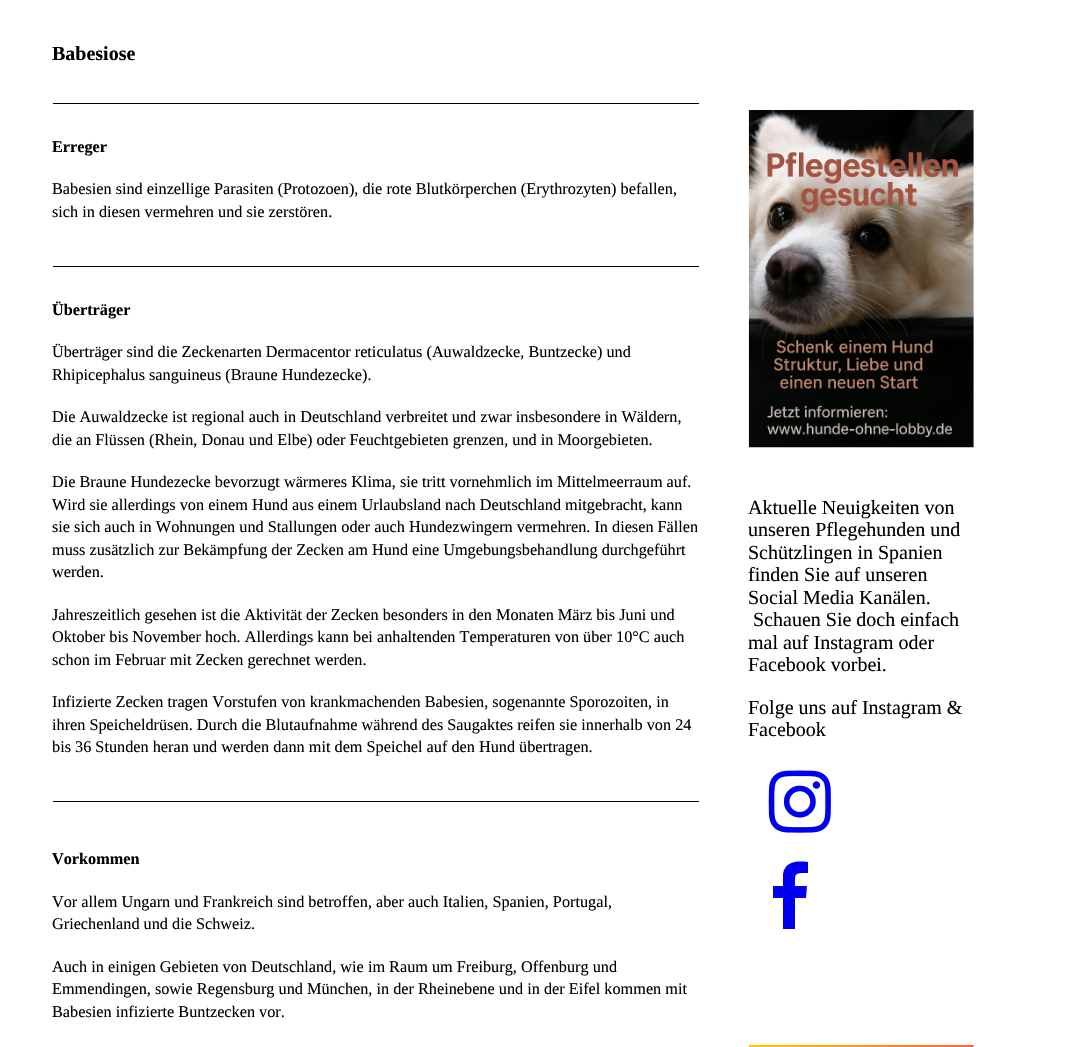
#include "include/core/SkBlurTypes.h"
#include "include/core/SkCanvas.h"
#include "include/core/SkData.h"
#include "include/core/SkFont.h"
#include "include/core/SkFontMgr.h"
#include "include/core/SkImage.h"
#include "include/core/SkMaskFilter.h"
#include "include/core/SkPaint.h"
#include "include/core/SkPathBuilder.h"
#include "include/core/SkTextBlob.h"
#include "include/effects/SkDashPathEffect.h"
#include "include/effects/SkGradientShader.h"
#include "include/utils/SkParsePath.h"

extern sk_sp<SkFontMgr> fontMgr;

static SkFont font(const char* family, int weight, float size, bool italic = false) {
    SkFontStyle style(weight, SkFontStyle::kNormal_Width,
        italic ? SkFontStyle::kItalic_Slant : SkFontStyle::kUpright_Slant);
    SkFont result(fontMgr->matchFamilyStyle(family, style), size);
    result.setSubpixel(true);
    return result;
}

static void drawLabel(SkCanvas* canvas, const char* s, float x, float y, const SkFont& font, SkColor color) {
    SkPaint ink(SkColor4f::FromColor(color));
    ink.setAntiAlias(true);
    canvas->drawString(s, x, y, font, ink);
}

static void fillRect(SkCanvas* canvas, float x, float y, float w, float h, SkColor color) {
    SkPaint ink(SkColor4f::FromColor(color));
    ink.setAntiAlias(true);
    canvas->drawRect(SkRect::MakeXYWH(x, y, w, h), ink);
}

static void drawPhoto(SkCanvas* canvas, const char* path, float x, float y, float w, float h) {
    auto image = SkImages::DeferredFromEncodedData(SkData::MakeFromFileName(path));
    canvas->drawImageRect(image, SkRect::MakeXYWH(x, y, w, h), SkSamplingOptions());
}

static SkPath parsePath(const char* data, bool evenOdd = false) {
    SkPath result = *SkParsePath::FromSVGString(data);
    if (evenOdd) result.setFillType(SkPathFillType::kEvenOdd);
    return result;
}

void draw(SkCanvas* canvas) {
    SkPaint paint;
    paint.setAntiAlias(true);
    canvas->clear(0xFFFFFFFF);
    SkFont font1 = font("Liberation Serif", 700, 20);
    drawLabel(canvas, "Babesiose", 52, 60, font1, 0xFF000000);
    fillRect(canvas, 53, 103, 646, 1, 0xFF000000);
    SkFont font2 = font("Liberation Serif", 700, 16.25f);
    drawLabel(canvas, "Erreger", 52, 152, font2, 0xFF000000);
    SkFont font3 = font("Liberation Serif", 400, 16.25f);
    drawLabel(canvas, "Babesien sind einzellige Parasiten (Protozoen), die rote Blutkörperchen (Erythrozyten) befallen,", 52, 194, font3, 0xFF000000);
    drawLabel(canvas, "sich in diesen vermehren und sie zerstören.", 52, 217, font3, 0xFF000000);
    fillRect(canvas, 53, 266, 646, 1, 0xFF000000);
    drawLabel(canvas, "Überträger", 52, 315, font2, 0xFF000000);
    drawLabel(canvas, "Überträger sind die Zeckenarten Dermacentor reticulatus (Auwaldzecke, Buntzecke) und", 52, 357, font3, 0xFF000000);
    drawLabel(canvas, "Rhipicephalus sanguineus (Braune Hundezecke).", 52, 380, font3, 0xFF000000);
    drawLabel(canvas, "Die Auwaldzecke ist regional auch in Deutschland verbreitet und zwar insbesondere in Wäldern,", 52, 422, font3, 0xFF000000);
    drawLabel(canvas, "die an Flüssen (Rhein, Donau und Elbe) oder Feuchtgebieten grenzen, und in Moorgebieten.", 52, 445, font3, 0xFF000000);
    drawLabel(canvas, "Die Braune Hundezecke bevorzugt wärmeres Klima, sie tritt vornehmlich im Mittelmeerraum auf.", 52, 487, font3, 0xFF000000);
    drawLabel(canvas, "Wird sie allerdings von einem Hund aus einem Urlaubsland nach Deutschland mitgebracht, kann", 52, 510, font3, 0xFF000000);
    drawLabel(canvas, "sie sich auch in Wohnungen und Stallungen oder auch Hundezwingern vermehren. In diesen Fällen", 52, 532, font3, 0xFF000000);
    drawLabel(canvas, "muss zusätzlich zur Bekämpfung der Zecken am Hund eine Umgebungsbehandlung durchgeführt", 52, 555, font3, 0xFF000000);
    drawLabel(canvas, "werden.", 52, 577, font3, 0xFF000000);
    drawLabel(canvas, "Jahreszeitlich gesehen ist die Aktivität der Zecken besonders in den Monaten März bis Juni und", 52, 620, font3, 0xFF000000);
    drawLabel(canvas, "Oktober bis November hoch. Allerdings kann bei anhaltenden Temperaturen von über 10°C auch", 52, 642, font3, 0xFF000000);
    drawLabel(canvas, "schon im Februar mit Zecken gerechnet werden.", 52, 665, font3, 0xFF000000);
    drawLabel(canvas, "Infizierte Zecken tragen Vorstufen von krankmachenden Babesien, sogenannte Sporozoiten, in", 52, 707, font3, 0xFF000000);
    drawLabel(canvas, "ihren Speicheldrüsen. Durch die Blutaufnahme während des Saugaktes reifen sie innerhalb von 24", 52, 730, font3, 0xFF000000);
    drawLabel(canvas, "bis 36 Stunden heran und werden dann mit dem Speichel auf den Hund übertragen.", 52, 752, font3, 0xFF000000);
    fillRect(canvas, 53, 801, 646, 1, 0xFF000000);
    drawLabel(canvas, "Vorkommen", 52, 864, font2, 0xFF000000);
    drawLabel(canvas, "Vor allem Ungarn und Frankreich sind betroffen, aber auch Italien, Spanien, Portugal,", 52, 907, font3, 0xFF000000);
    drawLabel(canvas, "Griechenland und die Schweiz.", 52, 929, font3, 0xFF000000);
    drawLabel(canvas, "Auch in einigen Gebieten von Deutschland, wie im Raum um Freiburg, Offenburg und", 52, 972, font3, 0xFF000000);
    drawLabel(canvas, "Emmendingen, sowie Regensburg und München, in der Rheinebene und in der Eifel kommen mit", 52, 994, font3, 0xFF000000);
    drawLabel(canvas, "Babesien infizierte Buntzecken vor.", 52, 1017, font3, 0xFF000000);
    drawPhoto(canvas, "assets/img1.png", 748, 110, 226, 338);
    SkFont font4 = font("Liberation Serif", 400, 20);
    drawLabel(canvas, "Aktuelle Neuigkeiten von", 748, 514, font4, 0xFF000000);
    drawLabel(canvas, "unseren Pflegehunden und", 748, 536, font4, 0xFF000000);
    drawLabel(canvas, "Schützlingen in Spanien", 748, 559, font4, 0xFF000000);
    drawLabel(canvas, "finden Sie auf unseren", 748, 581, font4, 0xFF000000);
    drawLabel(canvas, "Social Media Kanälen.", 748, 604, font4, 0xFF000000);
    drawLabel(canvas, "Schauen Sie doch einfach", 753, 626, font4, 0xFF000000);
    drawLabel(canvas, "mal auf Instagram oder", 748, 649, font4, 0xFF000000);
    drawLabel(canvas, "Facebook vorbei.", 748, 671, font4, 0xFF000000);
    drawLabel(canvas, "Folge uns auf Instagram &", 748, 714, font4, 0xFF000000);
    drawLabel(canvas, "Facebook", 748, 736, font4, 0xFF000000);
    drawPhoto(canvas, "assets/img2.png", 768, 770, 63, 63);
    paint.setColor(0xFF0000EE);
    canvas->drawPath(parsePath("M808 862V873C794 873 795 873 795 886H807L806 898H795V929H783V898H773V886H783V874C785 861 797 861 808 862Z"), paint);
    drawPhoto(canvas, "assets/img3.png", 748, 1045, 226, 2);
}
